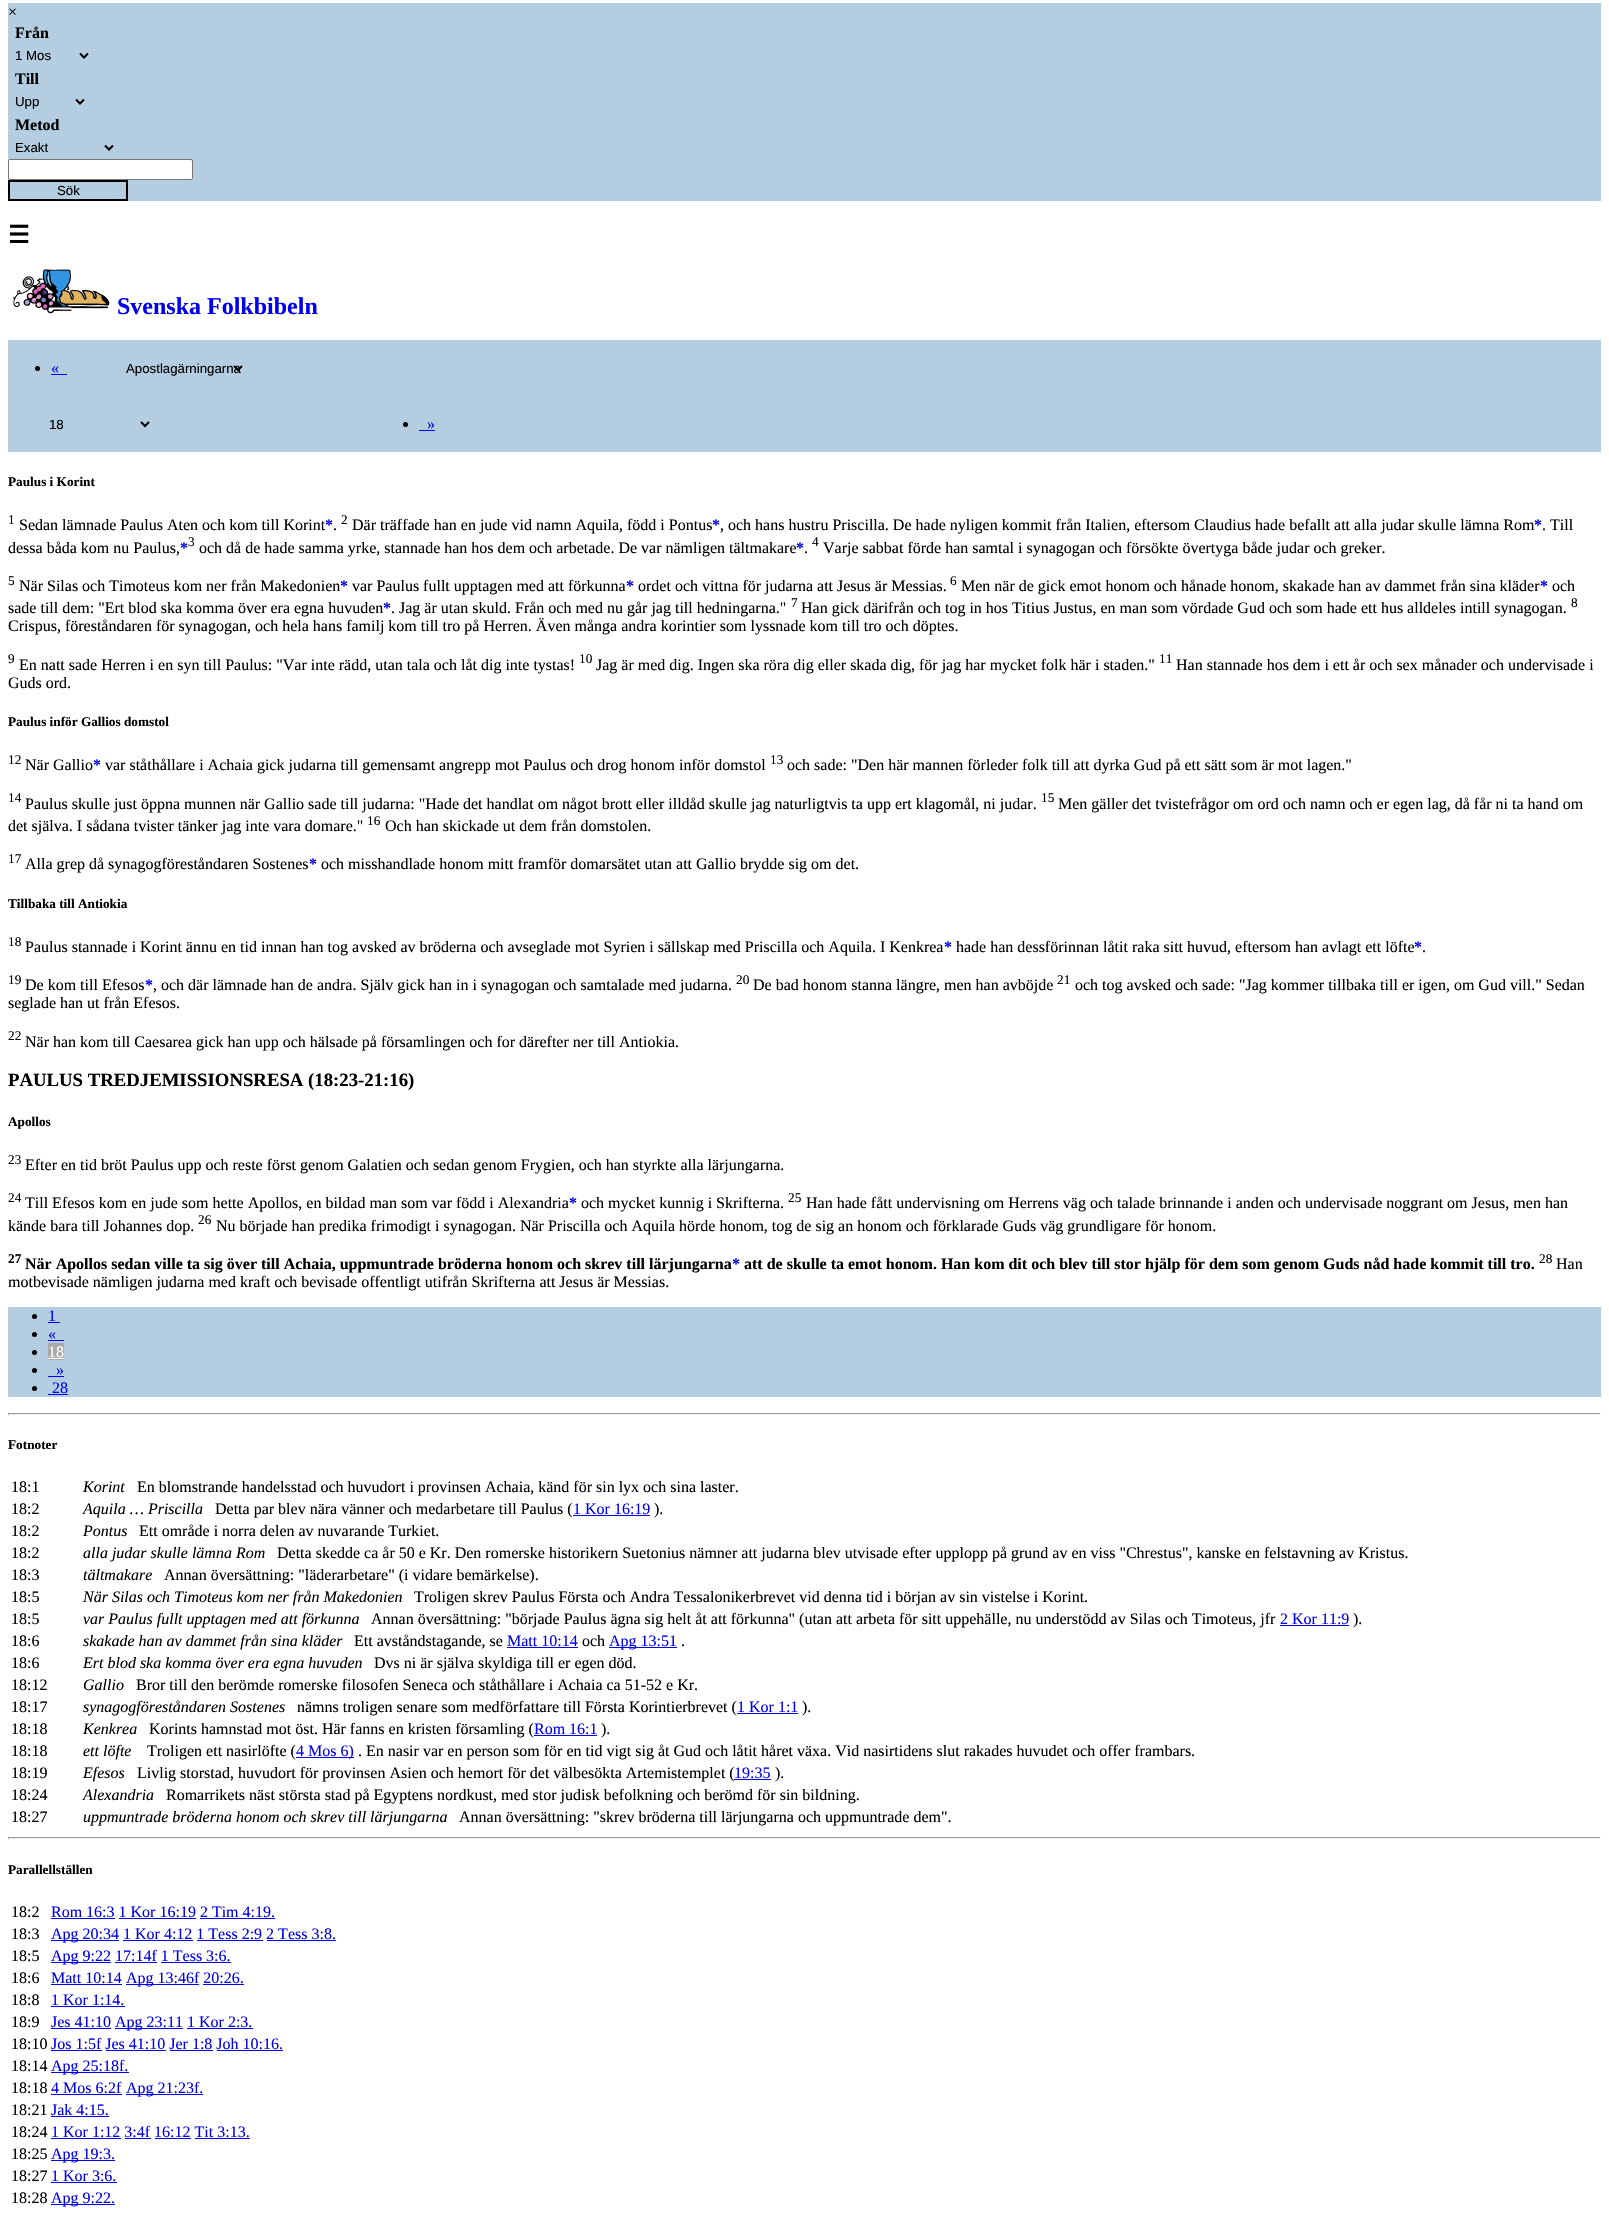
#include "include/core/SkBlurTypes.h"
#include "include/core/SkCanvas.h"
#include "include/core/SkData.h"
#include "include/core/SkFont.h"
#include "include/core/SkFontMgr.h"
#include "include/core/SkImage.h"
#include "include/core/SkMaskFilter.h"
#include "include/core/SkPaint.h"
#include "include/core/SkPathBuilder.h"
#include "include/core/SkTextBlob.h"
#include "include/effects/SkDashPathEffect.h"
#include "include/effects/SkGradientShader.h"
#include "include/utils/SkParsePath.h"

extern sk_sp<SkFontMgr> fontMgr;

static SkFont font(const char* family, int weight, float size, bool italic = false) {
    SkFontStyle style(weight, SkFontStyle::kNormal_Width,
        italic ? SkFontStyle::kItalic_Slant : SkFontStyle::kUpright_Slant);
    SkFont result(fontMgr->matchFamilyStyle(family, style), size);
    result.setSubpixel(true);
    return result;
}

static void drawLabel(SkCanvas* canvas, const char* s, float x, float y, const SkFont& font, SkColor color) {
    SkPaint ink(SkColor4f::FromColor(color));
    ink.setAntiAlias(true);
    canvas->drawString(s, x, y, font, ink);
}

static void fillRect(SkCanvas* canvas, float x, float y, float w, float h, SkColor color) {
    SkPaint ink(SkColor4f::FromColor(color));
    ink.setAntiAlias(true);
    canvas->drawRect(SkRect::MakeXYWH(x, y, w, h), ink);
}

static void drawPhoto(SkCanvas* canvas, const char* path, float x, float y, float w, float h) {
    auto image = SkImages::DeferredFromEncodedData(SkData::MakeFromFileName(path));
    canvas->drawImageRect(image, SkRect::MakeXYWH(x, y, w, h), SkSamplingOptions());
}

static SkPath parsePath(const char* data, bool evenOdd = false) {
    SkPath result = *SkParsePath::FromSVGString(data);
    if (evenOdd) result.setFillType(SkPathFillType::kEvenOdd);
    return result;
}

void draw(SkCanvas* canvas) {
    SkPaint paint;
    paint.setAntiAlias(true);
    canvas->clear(0xFFFFFFFF);
    fillRect(canvas, 8, 3, 1593, 198, 0xFFB4CDE1);
    SkFont font1 = font("Liberation Serif", 400, 16);
    drawLabel(canvas, "×", 8, 17, font1, 0xFF000000);
    SkFont font2 = font("Liberation Serif", 700, 16);
    drawLabel(canvas, "Från", 15, 38, font2, 0xFF000000);
    paint.setStroke(true);
    paint.setStrokeWidth(2);
    paint.setColor(0xFF000000);
    canvas->drawPath(parsePath("M80 53.5L84 57.5L88 53.5"), paint);
    SkFont font3 = font("Liberation Sans", 400, 13.25f);
    drawLabel(canvas, "1 Mos", 15, 60, font3, 0xFF000000);
    drawLabel(canvas, "Till", 15, 84, font2, 0xFF000000);
    canvas->drawPath(parsePath("M76 99.5L80 103.5L84 99.5"), paint);
    drawLabel(canvas, "Upp", 15, 106, font3, 0xFF000000);
    drawLabel(canvas, "Metod", 15, 130, font2, 0xFF000000);
    canvas->drawPath(parsePath("M105 145.5L109 149.5L113 145.5"), paint);
    drawLabel(canvas, "Exakt", 15, 152, font3, 0xFF000000);
    paint.setStroke(false);
    paint.setColor(0xFFFFFFFF);
    canvas->drawRoundRect(SkRect::MakeXYWH(8.5f, 159.5f, 184, 20), 1.5f, 1.5f, paint);
    paint.setStroke(true);
    paint.setStrokeWidth(1);
    paint.setColor(0xFF767676);
    canvas->drawRoundRect(SkRect::MakeXYWH(8.5f, 159.5f, 184, 20), 1.5f, 1.5f, paint);
    paint.setStrokeWidth(2);
    paint.setColor(0xFF000000);
    canvas->drawRect(SkRect::MakeXYWH(9, 181, 118, 19), paint);
    drawLabel(canvas, "Sök", 57, 195, font3, 0xFF000000);
    SkFont font4 = font("DejaVu Sans", 700, 24);
    drawLabel(canvas, "☰", 8, 243, font4, 0xFF000000);
    drawPhoto(canvas, "assets/img1.png", 13, 269, 97, 45);
    SkFont font5 = font("Liberation Serif", 700, 24);
    drawLabel(canvas, "Svenska Folkbibeln", 117, 314, font5, 0xFF0000EE);
    fillRect(canvas, 8, 340, 1593, 112, 0xFFB4CDE1);
    paint.setStroke(false);
    canvas->drawCircle(37.5f, 368.5f, 2.5f, paint);
    drawLabel(canvas, "«", 51, 373, font1, 0xFF0000EE);
    fillRect(canvas, 51, 374, 16, 1, 0xFF0000EE);
    paint.setStroke(true);
    canvas->drawPath(parsePath("M234 366L238 370L242 366"), paint);
    drawLabel(canvas, "Apostlagärningarna", 126, 373, font3, 0xFF000000);
    canvas->drawPath(parsePath("M141 422L145 426L149 422"), paint);
    drawLabel(canvas, "18", 49, 429, font3, 0xFF000000);
    paint.setStroke(false);
    canvas->drawCircle(405.5f, 424.5f, 2.5f, paint);
    drawLabel(canvas, "»", 427, 429, font1, 0xFF0000EE);
    fillRect(canvas, 419, 430, 16, 1, 0xFF0000EE);
    SkFont font6 = font("Liberation Serif", 700, 13.25f);
    drawLabel(canvas, "Paulus i Korint", 8, 486, font6, 0xFF000000);
    SkFont font7 = font("Liberation Serif", 400, 13.25f);
    drawLabel(canvas, "1", 8, 524, font7, 0xFF000000);
    drawLabel(canvas, "Sedan lämnade Paulus Aten och kom till Korint", 19, 530, font1, 0xFF000000);
    drawLabel(canvas, "*", 325, 530, font2, 0xFF0000EE);
    drawLabel(canvas, "2", 341, 524, font7, 0xFF000000);
    drawLabel(canvas, "Där träffade han en jude vid namn Aquila, född i Pontus", 352, 530, font1, 0xFF000000);
    drawLabel(canvas, "*", 712, 530, font2, 0xFF0000EE);
    drawLabel(canvas, ", och hans hustru Priscilla. De hade nyligen kommit från Italien, eftersom Claudius hade befallt att alla judar skulle lämna Rom", 720, 530, font1, 0xFF000000);
    drawLabel(canvas, "*", 1534, 530, font2, 0xFF0000EE);
    drawLabel(canvas, ". Till", 1542, 530, font1, 0xFF000000);
    drawLabel(canvas, ".", 333, 530, font1, 0xFF000000);
    drawLabel(canvas, "dessa båda kom nu Paulus,", 8, 553, font1, 0xFF000000);
    drawLabel(canvas, "*", 180, 553, font2, 0xFF0000EE);
    drawLabel(canvas, "3", 188, 546, font7, 0xFF000000);
    drawLabel(canvas, "och då de hade samma yrke, stannade han hos dem och arbetade. De var nämligen tältmakare", 199, 553, font1, 0xFF000000);
    drawLabel(canvas, "*", 796, 553, font2, 0xFF0000EE);
    drawLabel(canvas, "4", 812, 546, font7, 0xFF000000);
    drawLabel(canvas, "Varje sabbat förde han samtal i synagogan och försökte övertyga både judar och greker.", 823, 553, font1, 0xFF000000);
    drawLabel(canvas, ".", 804, 553, font1, 0xFF000000);
    drawLabel(canvas, "5", 8, 585, font7, 0xFF000000);
    drawLabel(canvas, "När Silas och Timoteus kom ner från Makedonien", 19, 591, font1, 0xFF000000);
    drawLabel(canvas, "*", 340, 591, font2, 0xFF0000EE);
    drawLabel(canvas, "var Paulus fullt upptagen med att förkunna", 352, 591, font1, 0xFF000000);
    drawLabel(canvas, "*", 626, 591, font2, 0xFF0000EE);
    drawLabel(canvas, "ordet och vittna för judarna att Jesus är Messias.", 638, 591, font1, 0xFF000000);
    drawLabel(canvas, "6", 950, 585, font7, 0xFF000000);
    drawLabel(canvas, "Men när de gick emot honom och hånade honom, skakade han av dammet från sina kläder", 961, 591, font1, 0xFF000000);
    drawLabel(canvas, "*", 1540, 591, font2, 0xFF0000EE);
    drawLabel(canvas, "och", 1552, 591, font1, 0xFF000000);
    drawLabel(canvas, "sade till dem: \"Ert blod ska komma över era egna huvuden", 8, 613, font1, 0xFF000000);
    drawLabel(canvas, "*", 383, 613, font2, 0xFF0000EE);
    drawLabel(canvas, ". Jag är utan skuld. Från och med nu går jag till hedningarna.\"", 391, 613, font1, 0xFF000000);
    drawLabel(canvas, "7", 791, 607, font7, 0xFF000000);
    drawLabel(canvas, "Han gick därifrån och tog in hos Titius Justus, en man som vördade Gud och som hade ett hus alldeles intill synagogan.", 801, 613, font1, 0xFF000000);
    drawLabel(canvas, "8", 1571, 607, font7, 0xFF000000);
    drawLabel(canvas, "Crispus, föreståndaren för synagogan, och hela hans familj kom till tro på Herren. Även många andra korintier som lyssnade kom till tro och döptes.", 8, 631, font1, 0xFF000000);
    drawLabel(canvas, "9", 8, 663, font7, 0xFF000000);
    drawLabel(canvas, "En natt sade Herren i en syn till Paulus: \"Var inte rädd, utan tala och låt dig inte tystas!", 19, 670, font1, 0xFF000000);
    drawLabel(canvas, "10", 579, 663, font7, 0xFF000000);
    drawLabel(canvas, "Jag är med dig. Ingen ska röra dig eller skada dig, för jag har mycket folk här i staden.\"", 596, 670, font1, 0xFF000000);
    drawLabel(canvas, "11", 1159, 663, font7, 0xFF000000);
    drawLabel(canvas, "Han stannade hos dem i ett år och sex månader och undervisade i", 1176, 670, font1, 0xFF000000);
    drawLabel(canvas, "Guds ord.", 8, 688, font1, 0xFF000000);
    drawLabel(canvas, "Paulus inför Gallios domstol", 8, 726, font6, 0xFF000000);
    drawLabel(canvas, "12", 8, 764, font7, 0xFF000000);
    drawLabel(canvas, "När Gallio", 25, 770, font1, 0xFF000000);
    drawLabel(canvas, "*", 93, 770, font2, 0xFF0000EE);
    drawLabel(canvas, "var ståthållare i Achaia gick judarna till gemensamt angrepp mot Paulus och drog honom inför domstol", 105, 770, font1, 0xFF000000);
    drawLabel(canvas, "13", 770, 764, font7, 0xFF000000);
    drawLabel(canvas, "och sade: \"Den här mannen förleder folk till att dyrka Gud på ett sätt som är mot lagen.\"", 787, 770, font1, 0xFF000000);
    drawLabel(canvas, "14", 8, 802, font7, 0xFF000000);
    drawLabel(canvas, "Paulus skulle just öppna munnen när Gallio sade till judarna: \"Hade det handlat om något brott eller illdåd skulle jag naturligtvis ta upp ert klagomål, ni judar.", 25, 809, font1, 0xFF000000);
    drawLabel(canvas, "15", 1041, 802, font7, 0xFF000000);
    drawLabel(canvas, "Men gäller det tvistefrågor om ord och namn och er egen lag, då får ni ta hand om", 1058, 809, font1, 0xFF000000);
    drawLabel(canvas, "det själva. I sådana tvister tänker jag inte vara domare.\"", 8, 831, font1, 0xFF000000);
    drawLabel(canvas, "16", 367, 825, font7, 0xFF000000);
    drawLabel(canvas, "Och han skickade ut dem från domstolen.", 385, 831, font1, 0xFF000000);
    drawLabel(canvas, "17", 8, 863, font7, 0xFF000000);
    drawLabel(canvas, "Alla grep då synagogföreståndaren Sostenes", 25, 869, font1, 0xFF000000);
    drawLabel(canvas, "*", 309, 869, font2, 0xFF0000EE);
    drawLabel(canvas, "och misshandlade honom mitt framför domarsätet utan att Gallio brydde sig om det.", 321, 869, font1, 0xFF000000);
    drawLabel(canvas, "Tillbaka till Antiokia", 8, 908, font6, 0xFF000000);
    drawLabel(canvas, "18", 8, 946, font7, 0xFF000000);
    drawLabel(canvas, "Paulus stannade i Korint ännu en tid innan han tog avsked av bröderna och avseglade mot Syrien i sällskap med Priscilla och Aquila. I Kenkrea", 25, 952, font1, 0xFF000000);
    drawLabel(canvas, "*", 944, 952, font2, 0xFF0000EE);
    drawLabel(canvas, "hade han dessförinnan låtit raka sitt huvud, eftersom han avlagt ett löfte", 956, 952, font1, 0xFF000000);
    drawLabel(canvas, "*", 1414, 952, font2, 0xFF0000EE);
    drawLabel(canvas, ".", 1422, 952, font1, 0xFF000000);
    drawLabel(canvas, "19", 8, 984, font7, 0xFF000000);
    drawLabel(canvas, "De kom till Efesos", 25, 990, font1, 0xFF000000);
    drawLabel(canvas, "*", 145, 990, font2, 0xFF0000EE);
    drawLabel(canvas, ", och där lämnade han de andra. Själv gick han in i synagogan och samtalade med judarna.", 153, 990, font1, 0xFF000000);
    drawLabel(canvas, "20", 736, 984, font7, 0xFF000000);
    drawLabel(canvas, "De bad honom stanna längre, men han avböjde", 753, 990, font1, 0xFF000000);
    drawLabel(canvas, "21", 1057, 984, font7, 0xFF000000);
    drawLabel(canvas, "och tog avsked och sade: \"Jag kommer tillbaka till er igen, om Gud vill.\" Sedan", 1075, 990, font1, 0xFF000000);
    drawLabel(canvas, "seglade han ut från Efesos.", 8, 1008, font1, 0xFF000000);
    drawLabel(canvas, "22", 8, 1040, font7, 0xFF000000);
    drawLabel(canvas, "När han kom till Caesarea gick han upp och hälsade på församlingen och for därefter ner till Antiokia.", 25, 1047, font1, 0xFF000000);
    SkFont font8 = font("Liberation Serif", 700, 18.75f);
    drawLabel(canvas, "PAULUS TREDJEMISSIONSRESA (18:23-21:16)", 8, 1086, font8, 0xFF000000);
    drawLabel(canvas, "Apollos", 8, 1126, font6, 0xFF000000);
    drawLabel(canvas, "23", 8, 1164, font7, 0xFF000000);
    drawLabel(canvas, "Efter en tid bröt Paulus upp och reste först genom Galatien och sedan genom Frygien, och han styrkte alla lärjungarna.", 25, 1170, font1, 0xFF000000);
    drawLabel(canvas, "24", 8, 1202, font7, 0xFF000000);
    drawLabel(canvas, "Till Efesos kom en jude som hette Apollos, en bildad man som var född i Alexandria", 25, 1208, font1, 0xFF000000);
    drawLabel(canvas, "*", 569, 1208, font2, 0xFF0000EE);
    drawLabel(canvas, "och mycket kunnig i Skrifterna.", 581, 1208, font1, 0xFF000000);
    drawLabel(canvas, "25", 788, 1202, font7, 0xFF000000);
    drawLabel(canvas, "Han hade fått undervisning om Herrens väg och talade brinnande i anden och undervisade noggrant om Jesus, men han", 806, 1208, font1, 0xFF000000);
    drawLabel(canvas, "kände bara till Johannes dop.", 8, 1231, font1, 0xFF000000);
    drawLabel(canvas, "26", 198, 1224, font7, 0xFF000000);
    drawLabel(canvas, "Nu började han predika frimodigt i synagogan. När Priscilla och Aquila hörde honom, tog de sig an honom och förklarade Guds väg grundligare för honom.", 216, 1231, font1, 0xFF000000);
    drawLabel(canvas, "27", 8, 1263, font6, 0xFF000000);
    drawLabel(canvas, "När Apollos sedan ville ta sig över till Achaia, uppmuntrade bröderna honom och skrev till lärjungarna", 25, 1269, font2, 0xFF000000);
    drawLabel(canvas, "*", 732, 1269, font2, 0xFF0000EE);
    drawLabel(canvas, "att de skulle ta emot honom. Han kom dit och blev till stor hjälp för dem som genom Guds nåd hade kommit till tro.", 744, 1269, font2, 0xFF000000);
    drawLabel(canvas, "28", 1539, 1263, font7, 0xFF000000);
    drawLabel(canvas, "Han", 1556, 1269, font1, 0xFF000000);
    drawLabel(canvas, "motbevisade nämligen judarna med kraft och bevisade offentligt utifrån Skrifterna att Jesus är Messias.", 8, 1287, font1, 0xFF000000);
    fillRect(canvas, 8, 1307, 1593, 90, 0xFFB4CDE1);
    canvas->drawCircle(34.5f, 1316.5f, 2.5f, paint);
    drawLabel(canvas, "1", 48, 1321, font1, 0xFF0000EE);
    fillRect(canvas, 48, 1322, 12, 1, 0xFF0000EE);
    canvas->drawCircle(34.5f, 1334.5f, 2.5f, paint);
    drawLabel(canvas, "«", 48, 1339, font1, 0xFF0000EE);
    fillRect(canvas, 48, 1340, 16, 1, 0xFF0000EE);
    canvas->drawCircle(34.5f, 1352.5f, 2.5f, paint);
    fillRect(canvas, 48, 1343, 16, 17, 0xFFA9A9A9);
    drawLabel(canvas, "18", 48, 1357, font1, 0xFFFFFFFF);
    fillRect(canvas, 48, 1358, 16, 1, 0xFFFFFFFF);
    canvas->drawCircle(34.5f, 1370.5f, 2.5f, paint);
    drawLabel(canvas, "»", 56, 1375, font1, 0xFF0000EE);
    fillRect(canvas, 48, 1376, 16, 1, 0xFF0000EE);
    canvas->drawCircle(34.5f, 1388.5f, 2.5f, paint);
    drawLabel(canvas, "28", 52, 1393, font1, 0xFF0000EE);
    fillRect(canvas, 48, 1394, 20, 1, 0xFF0000EE);
    fillRect(canvas, 8, 1413, 1593, 1, 0xFF9F9F9F);
    fillRect(canvas, 1600, 1413, 1, 2, 0xFFEEEEEE);
    fillRect(canvas, 8, 1414, 1593, 1, 0xFFEEEEEE);
    fillRect(canvas, 8, 1413, 1, 2, 0xFF9F9F9F);
    drawLabel(canvas, "Fotnoter", 8, 1449, font6, 0xFF000000);
    drawLabel(canvas, "18:1", 11, 1492, font1, 0xFF000000);
    SkFont font9 = font("Liberation Serif", 400, 16, true);
    drawLabel(canvas, "Korint", 83, 1492, font9, 0xFF000000);
    drawLabel(canvas, "En blomstrande handelsstad och huvudort i provinsen Achaia, känd för sin lyx och sina laster.", 137, 1492, font1, 0xFF000000);
    drawLabel(canvas, "18:2", 11, 1514, font1, 0xFF000000);
    drawLabel(canvas, "Aquila … Priscilla", 83, 1514, font9, 0xFF000000);
    drawLabel(canvas, "Detta par blev nära vänner och medarbetare till Paulus (", 215, 1514, font1, 0xFF000000);
    drawLabel(canvas, "1 Kor 16:19", 573, 1514, font1, 0xFF0000EE);
    fillRect(canvas, 573, 1515, 77, 1, 0xFF0000EE);
    drawLabel(canvas, ").", 654, 1514, font1, 0xFF000000);
    drawLabel(canvas, "18:2", 11, 1536, font1, 0xFF000000);
    drawLabel(canvas, "Pontus", 83, 1536, font9, 0xFF000000);
    drawLabel(canvas, "Ett område i norra delen av nuvarande Turkiet.", 139, 1536, font1, 0xFF000000);
    drawLabel(canvas, "18:2", 11, 1558, font1, 0xFF000000);
    drawLabel(canvas, "alla judar skulle lämna Rom", 83, 1558, font9, 0xFF000000);
    drawLabel(canvas, "Detta skedde ca år 50 e Kr. Den romerske historikern Suetonius nämner att judarna blev utvisade efter upplopp på grund av en viss \"Chrestus\", kanske en felstavning av Kristus.", 277, 1558, font1, 0xFF000000);
    drawLabel(canvas, "18:3", 11, 1580, font1, 0xFF000000);
    drawLabel(canvas, "tältmakare", 83, 1580, font9, 0xFF000000);
    drawLabel(canvas, "Annan översättning: \"läderarbetare\" (i vidare bemärkelse).", 164, 1580, font1, 0xFF000000);
    drawLabel(canvas, "18:5", 11, 1602, font1, 0xFF000000);
    drawLabel(canvas, "När Silas och Timoteus kom ner från Makedonien", 83, 1602, font9, 0xFF000000);
    drawLabel(canvas, "Troligen skrev Paulus Första och Andra Tessalonikerbrevet vid denna tid i början av sin vistelse i Korint.", 414, 1602, font1, 0xFF000000);
    drawLabel(canvas, "18:5", 11, 1624, font1, 0xFF000000);
    drawLabel(canvas, "var Paulus fullt upptagen med att förkunna", 83, 1624, font9, 0xFF000000);
    drawLabel(canvas, "Annan översättning: \"började Paulus ägna sig helt åt att förkunna\" (utan att arbeta för sitt uppehälle, nu understödd av Silas och Timoteus, jfr", 371, 1624, font1, 0xFF000000);
    drawLabel(canvas, "2 Kor 11:9", 1280, 1624, font1, 0xFF0000EE);
    fillRect(canvas, 1280, 1625, 69, 1, 0xFF0000EE);
    drawLabel(canvas, ").", 1353, 1624, font1, 0xFF000000);
    drawLabel(canvas, "18:6", 11, 1646, font1, 0xFF000000);
    drawLabel(canvas, "skakade han av dammet från sina kläder", 83, 1646, font9, 0xFF000000);
    drawLabel(canvas, "Ett avståndstagande, se", 354, 1646, font1, 0xFF000000);
    drawLabel(canvas, "Matt 10:14", 507, 1646, font1, 0xFF0000EE);
    fillRect(canvas, 507, 1647, 71, 1, 0xFF0000EE);
    drawLabel(canvas, "och", 582, 1646, font1, 0xFF000000);
    fillRect(canvas, 609, 1647, 68, 1, 0xFF0000EE);
    drawLabel(canvas, "Apg 13:51", 609, 1646, font1, 0xFF0000EE);
    drawLabel(canvas, ".", 681, 1646, font1, 0xFF000000);
    drawLabel(canvas, "18:6", 11, 1668, font1, 0xFF000000);
    drawLabel(canvas, "Ert blod ska komma över era egna huvuden", 83, 1668, font9, 0xFF000000);
    drawLabel(canvas, "Dvs ni är själva skyldiga till er egen död.", 374, 1668, font1, 0xFF000000);
    drawLabel(canvas, "18:12", 11, 1690, font1, 0xFF000000);
    drawLabel(canvas, "Gallio", 83, 1690, font9, 0xFF000000);
    drawLabel(canvas, "Bror till den berömde romerske filosofen Seneca och ståthållare i Achaia ca 51-52 e Kr.", 136, 1690, font1, 0xFF000000);
    drawLabel(canvas, "18:17", 11, 1712, font1, 0xFF000000);
    drawLabel(canvas, "synagogföreståndaren Sostenes", 83, 1712, font9, 0xFF000000);
    drawLabel(canvas, "nämns troligen senare som medförfattare till Första Korintierbrevet (", 297, 1712, font1, 0xFF000000);
    drawLabel(canvas, "1 Kor 1:1", 737, 1712, font1, 0xFF0000EE);
    fillRect(canvas, 737, 1713, 61, 1, 0xFF0000EE);
    drawLabel(canvas, ").", 802, 1712, font1, 0xFF000000);
    drawLabel(canvas, "18:18", 11, 1734, font1, 0xFF000000);
    drawLabel(canvas, "Kenkrea", 83, 1734, font9, 0xFF000000);
    drawLabel(canvas, "Korints hamnstad mot öst. Här fanns en kristen församling (", 149, 1734, font1, 0xFF000000);
    drawLabel(canvas, "Rom 16:1", 534, 1734, font1, 0xFF0000EE);
    fillRect(canvas, 534, 1735, 63, 1, 0xFF0000EE);
    drawLabel(canvas, ").", 601, 1734, font1, 0xFF000000);
    drawLabel(canvas, "18:18", 11, 1756, font1, 0xFF000000);
    drawLabel(canvas, "ett löfte", 83, 1756, font9, 0xFF000000);
    drawLabel(canvas, "Troligen ett nasirlöfte (", 147, 1756, font1, 0xFF000000);
    fillRect(canvas, 296, 1757, 58, 1, 0xFF0000EE);
    drawLabel(canvas, "4 Mos 6)", 296, 1756, font1, 0xFF0000EE);
    drawLabel(canvas, ". En nasir var en person som för en tid vigt sig åt Gud och låtit håret växa. Vid nasirtidens slut rakades huvudet och offer frambars.", 358, 1756, font1, 0xFF000000);
    drawLabel(canvas, "18:19", 11, 1778, font1, 0xFF000000);
    drawLabel(canvas, "Efesos", 83, 1778, font9, 0xFF000000);
    drawLabel(canvas, "Livlig storstad, huvudort för provinsen Asien och hemort för det välbesökta Artemistemplet (", 137, 1778, font1, 0xFF000000);
    drawLabel(canvas, "19:35", 734, 1778, font1, 0xFF0000EE);
    fillRect(canvas, 734, 1779, 37, 1, 0xFF0000EE);
    drawLabel(canvas, ").", 775, 1778, font1, 0xFF000000);
    drawLabel(canvas, "18:24", 11, 1800, font1, 0xFF000000);
    drawLabel(canvas, "Alexandria", 83, 1800, font9, 0xFF000000);
    drawLabel(canvas, "Romarrikets näst största stad på Egyptens nordkust, med stor judisk befolkning och berömd för sin bildning.", 166, 1800, font1, 0xFF000000);
    drawLabel(canvas, "18:27", 11, 1822, font1, 0xFF000000);
    drawLabel(canvas, "uppmuntrade bröderna honom och skrev till lärjungarna", 83, 1822, font9, 0xFF000000);
    drawLabel(canvas, "Annan översättning: \"skrev bröderna till lärjungarna och uppmuntrade dem\".", 459, 1822, font1, 0xFF000000);
    fillRect(canvas, 8, 1837, 1593, 1, 0xFF9F9F9F);
    fillRect(canvas, 1600, 1837, 1, 2, 0xFFEEEEEE);
    fillRect(canvas, 8, 1838, 1593, 1, 0xFFEEEEEE);
    fillRect(canvas, 8, 1837, 1, 2, 0xFF9F9F9F);
    drawLabel(canvas, "Parallellställen", 8, 1874, font6, 0xFF000000);
    drawLabel(canvas, "18:2", 11, 1917, font1, 0xFF000000);
    drawLabel(canvas, "Rom 16:3 1 Kor 16:19 2 Tim 4:19.", 51, 1917, font1, 0xFF0000EE);
    fillRect(canvas, 51, 1918, 64, 1, 0xFF0000EE);
    fillRect(canvas, 119, 1918, 77, 1, 0xFF0000EE);
    fillRect(canvas, 200, 1918, 75, 1, 0xFF0000EE);
    drawLabel(canvas, "18:3", 11, 1939, font1, 0xFF000000);
    fillRect(canvas, 51, 1940, 68, 1, 0xFF0000EE);
    drawLabel(canvas, "Apg 20:34 1 Kor 4:12 1 Tess 2:9 2 Tess 3:8.", 51, 1939, font1, 0xFF0000EE);
    fillRect(canvas, 123, 1940, 70, 1, 0xFF0000EE);
    fillRect(canvas, 197, 1940, 66, 1, 0xFF0000EE);
    fillRect(canvas, 267, 1940, 69, 1, 0xFF0000EE);
    drawLabel(canvas, "18:5", 11, 1961, font1, 0xFF000000);
    fillRect(canvas, 51, 1962, 60, 1, 0xFF0000EE);
    drawLabel(canvas, "Apg 9:22 17:14f 1 Tess 3:6.", 51, 1961, font1, 0xFF0000EE);
    fillRect(canvas, 115, 1962, 42, 1, 0xFF0000EE);
    fillRect(canvas, 161, 1962, 70, 1, 0xFF0000EE);
    drawLabel(canvas, "18:6", 11, 1983, font1, 0xFF000000);
    drawLabel(canvas, "Matt 10:14", 51, 1983, font1, 0xFF0000EE);
    fillRect(canvas, 51, 1984, 71, 1, 0xFF0000EE);
    fillRect(canvas, 126, 1984, 73, 1, 0xFF0000EE);
    drawLabel(canvas, "Apg 13:46f 20:26.", 126, 1983, font1, 0xFF0000EE);
    fillRect(canvas, 203, 1984, 41, 1, 0xFF0000EE);
    drawLabel(canvas, "18:8", 11, 2005, font1, 0xFF000000);
    drawLabel(canvas, "1 Kor 1:14.", 51, 2005, font1, 0xFF0000EE);
    fillRect(canvas, 51, 2006, 74, 1, 0xFF0000EE);
    drawLabel(canvas, "18:9", 11, 2027, font1, 0xFF000000);
    drawLabel(canvas, "Jes 41:10", 51, 2027, font1, 0xFF0000EE);
    fillRect(canvas, 51, 2028, 60, 1, 0xFF0000EE);
    fillRect(canvas, 115, 2028, 68, 1, 0xFF0000EE);
    drawLabel(canvas, "Apg 23:11 1 Kor 2:3.", 115, 2027, font1, 0xFF0000EE);
    fillRect(canvas, 187, 2028, 66, 1, 0xFF0000EE);
    drawLabel(canvas, "18:10", 11, 2049, font1, 0xFF000000);
    drawLabel(canvas, "Jos 1:5f Jes 41:10 Jer 1:8 Joh 10:16.", 51, 2049, font1, 0xFF0000EE);
    fillRect(canvas, 51, 2050, 51, 1, 0xFF0000EE);
    fillRect(canvas, 106, 2050, 60, 1, 0xFF0000EE);
    fillRect(canvas, 170, 2050, 43, 1, 0xFF0000EE);
    fillRect(canvas, 217, 2050, 66, 1, 0xFF0000EE);
    drawLabel(canvas, "18:14", 11, 2071, font1, 0xFF000000);
    fillRect(canvas, 51, 2072, 78, 1, 0xFF0000EE);
    drawLabel(canvas, "Apg 25:18f.", 51, 2071, font1, 0xFF0000EE);
    drawLabel(canvas, "18:18", 11, 2093, font1, 0xFF000000);
    drawLabel(canvas, "4 Mos 6:2f", 51, 2093, font1, 0xFF0000EE);
    fillRect(canvas, 51, 2094, 71, 1, 0xFF0000EE);
    fillRect(canvas, 126, 2094, 77, 1, 0xFF0000EE);
    drawLabel(canvas, "Apg 21:23f.", 126, 2093, font1, 0xFF0000EE);
    drawLabel(canvas, "18:21", 11, 2115, font1, 0xFF000000);
    drawLabel(canvas, "Jak 4:15.", 51, 2115, font1, 0xFF0000EE);
    fillRect(canvas, 51, 2116, 58, 1, 0xFF0000EE);
    drawLabel(canvas, "18:24", 11, 2137, font1, 0xFF000000);
    drawLabel(canvas, "1 Kor 1:12 3:4f 16:12 Tit 3:13.", 51, 2137, font1, 0xFF0000EE);
    fillRect(canvas, 51, 2138, 70, 1, 0xFF0000EE);
    fillRect(canvas, 125, 2138, 26, 1, 0xFF0000EE);
    fillRect(canvas, 155, 2138, 36, 1, 0xFF0000EE);
    fillRect(canvas, 195, 2138, 55, 1, 0xFF0000EE);
    drawLabel(canvas, "18:25", 11, 2159, font1, 0xFF000000);
    fillRect(canvas, 51, 2160, 64, 1, 0xFF0000EE);
    drawLabel(canvas, "Apg 19:3.", 51, 2159, font1, 0xFF0000EE);
    drawLabel(canvas, "18:27", 11, 2181, font1, 0xFF000000);
    drawLabel(canvas, "1 Kor 3:6.", 51, 2181, font1, 0xFF0000EE);
    fillRect(canvas, 51, 2182, 66, 1, 0xFF0000EE);
    drawLabel(canvas, "18:28", 11, 2203, font1, 0xFF000000);
    fillRect(canvas, 51, 2204, 64, 1, 0xFF0000EE);
    drawLabel(canvas, "Apg 9:22.", 51, 2203, font1, 0xFF0000EE);
}
